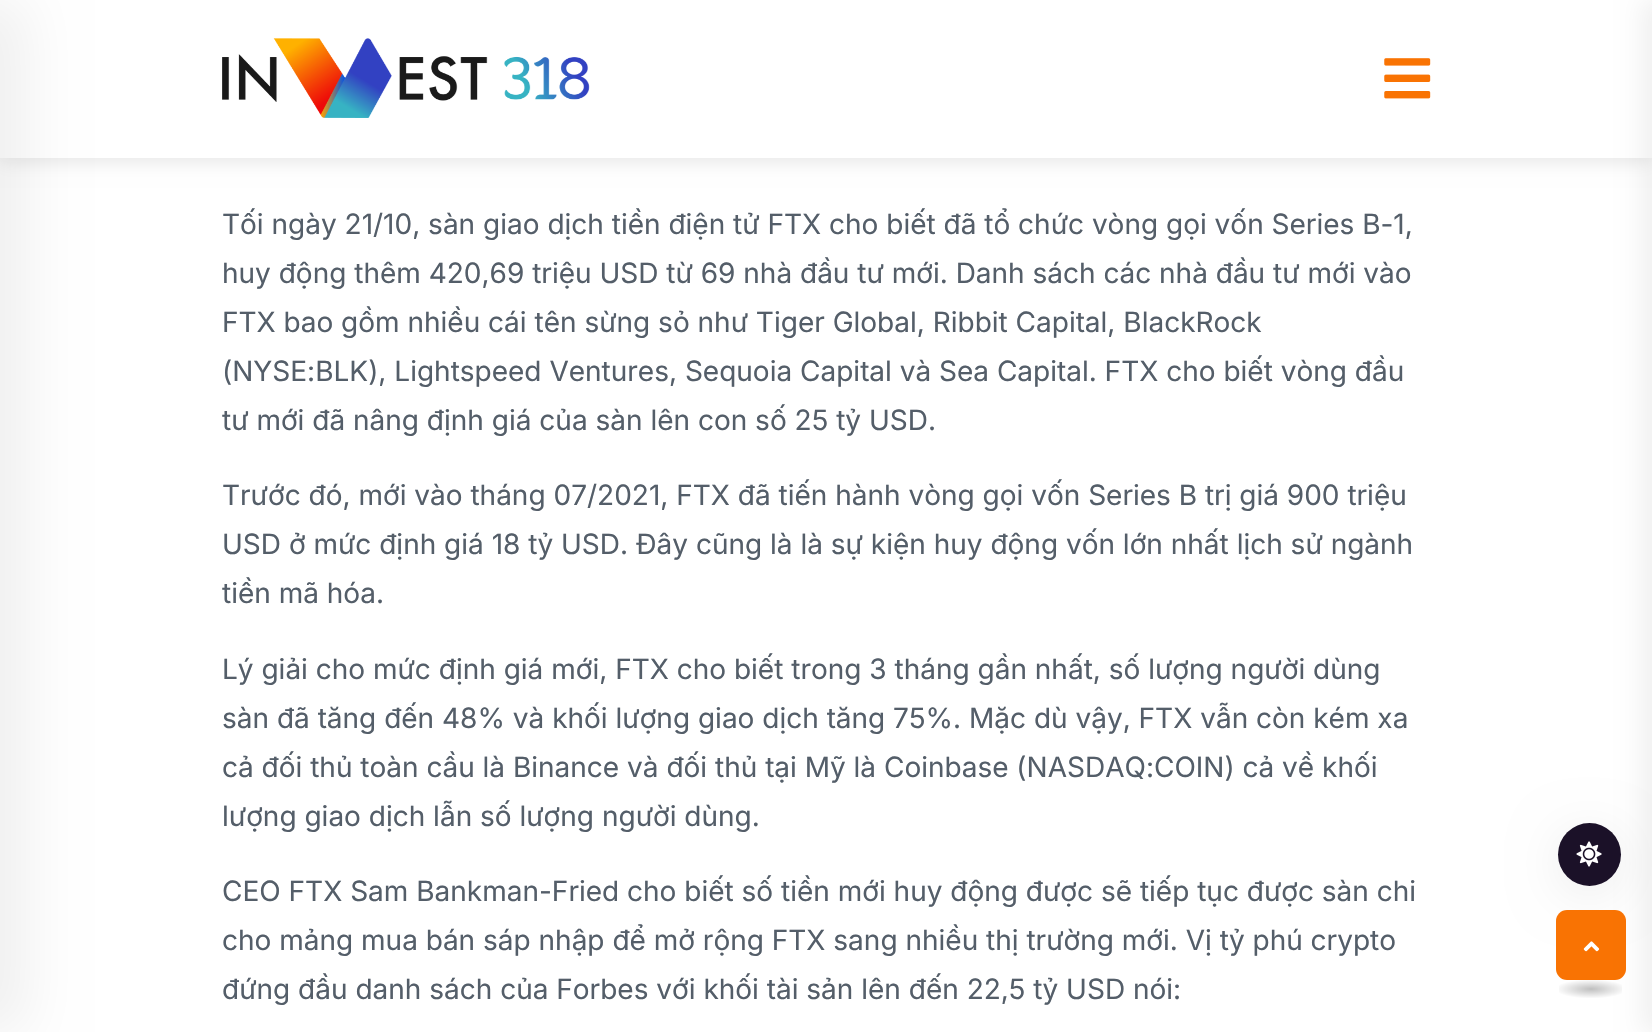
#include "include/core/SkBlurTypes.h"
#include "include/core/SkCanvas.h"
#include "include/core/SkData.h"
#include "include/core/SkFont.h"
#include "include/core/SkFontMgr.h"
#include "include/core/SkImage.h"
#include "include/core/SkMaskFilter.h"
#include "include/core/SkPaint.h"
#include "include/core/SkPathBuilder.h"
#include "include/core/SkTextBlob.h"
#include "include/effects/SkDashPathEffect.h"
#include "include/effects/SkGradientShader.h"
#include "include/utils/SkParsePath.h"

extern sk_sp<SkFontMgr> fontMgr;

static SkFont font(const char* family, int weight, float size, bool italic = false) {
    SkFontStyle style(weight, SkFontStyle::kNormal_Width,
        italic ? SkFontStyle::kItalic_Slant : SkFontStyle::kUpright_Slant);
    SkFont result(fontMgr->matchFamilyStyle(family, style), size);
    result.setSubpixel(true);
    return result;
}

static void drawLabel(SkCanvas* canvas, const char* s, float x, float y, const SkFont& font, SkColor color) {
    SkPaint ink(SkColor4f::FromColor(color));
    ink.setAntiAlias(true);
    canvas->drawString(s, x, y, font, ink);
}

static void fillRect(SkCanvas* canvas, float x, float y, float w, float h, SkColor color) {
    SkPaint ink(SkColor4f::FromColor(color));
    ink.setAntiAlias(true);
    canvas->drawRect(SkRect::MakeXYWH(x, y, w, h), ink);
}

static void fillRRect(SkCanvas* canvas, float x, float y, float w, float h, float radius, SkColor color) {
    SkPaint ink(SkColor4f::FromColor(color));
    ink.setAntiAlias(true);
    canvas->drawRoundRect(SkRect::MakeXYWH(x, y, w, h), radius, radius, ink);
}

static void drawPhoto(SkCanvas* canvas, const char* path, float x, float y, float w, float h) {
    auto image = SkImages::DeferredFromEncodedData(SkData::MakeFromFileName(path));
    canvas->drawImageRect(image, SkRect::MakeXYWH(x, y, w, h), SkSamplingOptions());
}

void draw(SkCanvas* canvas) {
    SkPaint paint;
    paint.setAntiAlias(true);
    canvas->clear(0xFFFFFFFF);
    paint.setColor(0x1A000000);
    paint.setMaskFilter(SkMaskFilter::MakeBlur(kNormal_SkBlurStyle, 9));
    canvas->drawRect(SkRect::MakeXYWH(0, 4, 1652, 157), paint);
    paint.setMaskFilter(nullptr);
    fillRect(canvas, 0, 0, 1652, 158, 0xFFFFFFFF);
    drawPhoto(canvas, "assets/img1.png", 222, 38, 368, 80);
    drawPhoto(canvas, "assets/img2.png", 1384, 58, 47, 41);
    paint.setColor(0x14000000);
    paint.setMaskFilter(SkMaskFilter::MakeBlur(kNormal_SkBlurStyle, 25));
    canvas->drawRoundRect(SkRect::MakeXYWH(1559, 833, 60, 61), 30, 30, paint);
    paint.setMaskFilter(nullptr);
    paint.setColor(0xFF1B1128);
    canvas->drawCircle(1589.5f, 854.5f, 31.5f, paint);
    fillRRect(canvas, 1556, 910, 70, 70, 11, 0xFFF97303);
    {
        const SkColor colors[] = {0xFFBFBFBF, 0xFFFFFFFF};
        const float stops[] = {0, 0.8f};
        SkMatrix m = SkMatrix::Translate(1591, 989).preScale(45, 12);
        paint.setShader(SkGradientShader::MakeRadial({0, 0}, 1, colors, stops, 2, SkTileMode::kClamp, 0, &m));
        paint.setAlpha(255);
    }
    canvas->drawRect(SkRect::MakeXYWH(1559, 980, 63, 18), paint);
    paint.setShader(nullptr);
    paint.setColor(0x0F000000);
    paint.setMaskFilter(SkMaskFilter::MakeBlur(kNormal_SkBlurStyle, 12));
    canvas->drawRect(SkRect::MakeXYWH(1642, 0, 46, 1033), paint);
    paint.setMaskFilter(nullptr);
    paint.setMaskFilter(SkMaskFilter::MakeBlur(kNormal_SkBlurStyle, 28));
    canvas->drawRect(SkRect::MakeXYWH(-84, 0, 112, 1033), paint);
    paint.setMaskFilter(nullptr);
    SkFont font1 = font("Inter", 400, 28);
    drawLabel(canvas, "Tối ngày 21/10, sàn giao dịch tiền điện tử FTX cho biết đã tổ chức vòng gọi vốn Series B-1,", 222, 234, font1, 0xFF545E69);
    drawLabel(canvas, "huy động thêm 420,69 triệu USD từ 69 nhà đầu tư mới. Danh sách các nhà đầu tư mới vào", 222, 283, font1, 0xFF545E69);
    drawLabel(canvas, "FTX bao gồm nhiều cái tên sừng sỏ như Tiger Global, Ribbit Capital, BlackRock", 222, 332, font1, 0xFF545E69);
    drawLabel(canvas, "(NYSE:BLK), Lightspeed Ventures, Sequoia Capital và Sea Capital. FTX cho biết vòng đầu", 222, 381, font1, 0xFF545E69);
    drawLabel(canvas, "tư mới đã nâng định giá của sàn lên con số 25 tỷ USD.", 222, 430, font1, 0xFF545E69);
    drawLabel(canvas, "Trước đó, mới vào tháng 07/2021, FTX đã tiến hành vòng gọi vốn Series B trị giá 900 triệu", 222, 505, font1, 0xFF545E69);
    drawLabel(canvas, "USD ở mức định giá 18 tỷ USD. Đây cũng là là sự kiện huy động vốn lớn nhất lịch sử ngành", 222, 554, font1, 0xFF545E69);
    drawLabel(canvas, "tiền mã hóa.", 222, 603, font1, 0xFF545E69);
    drawLabel(canvas, "Lý giải cho mức định giá mới, FTX cho biết trong 3 tháng gần nhất, số lượng người dùng", 222, 679, font1, 0xFF545E69);
    drawLabel(canvas, "sàn đã tăng đến 48% và khối lượng giao dịch tăng 75%. Mặc dù vậy, FTX vẫn còn kém xa", 222, 728, font1, 0xFF545E69);
    drawLabel(canvas, "cả đối thủ toàn cầu là Binance và đối thủ tại Mỹ là Coinbase (NASDAQ:COIN) cả về khối", 222, 777, font1, 0xFF545E69);
    drawLabel(canvas, "lượng giao dịch lẫn số lượng người dùng.", 222, 826, font1, 0xFF545E69);
    drawLabel(canvas, "CEO FTX Sam Bankman-Fried cho biết số tiền mới huy động được sẽ tiếp tục được sàn chi", 222, 901, font1, 0xFF545E69);
    drawLabel(canvas, "cho mảng mua bán sáp nhập để mở rộng FTX sang nhiều thị trường mới. Vị tỷ phú crypto", 222, 950, font1, 0xFF545E69);
    drawLabel(canvas, "đứng đầu danh sách của Forbes với khối tài sản lên đến 22,5 tỷ USD nói:", 222, 999, font1, 0xFF545E69);
    drawPhoto(canvas, "assets/img3.png", 1576, 841, 26, 26);
    drawPhoto(canvas, "assets/img4.png", 1583, 941, 17, 11);
}
